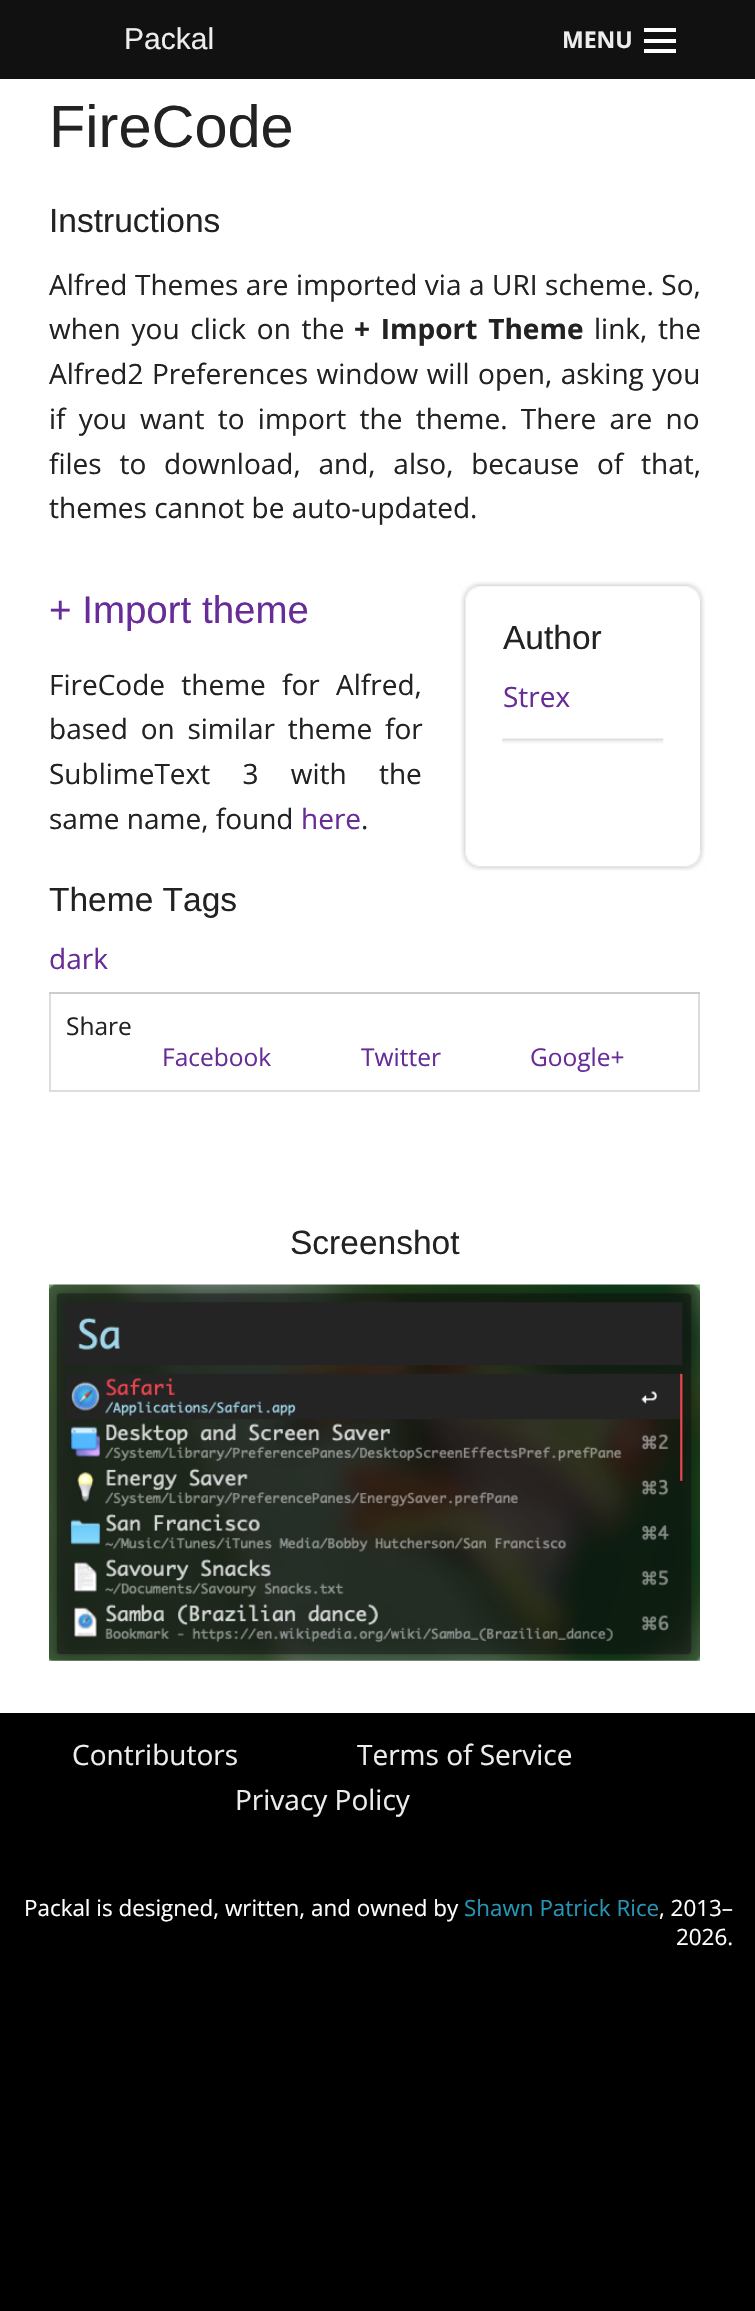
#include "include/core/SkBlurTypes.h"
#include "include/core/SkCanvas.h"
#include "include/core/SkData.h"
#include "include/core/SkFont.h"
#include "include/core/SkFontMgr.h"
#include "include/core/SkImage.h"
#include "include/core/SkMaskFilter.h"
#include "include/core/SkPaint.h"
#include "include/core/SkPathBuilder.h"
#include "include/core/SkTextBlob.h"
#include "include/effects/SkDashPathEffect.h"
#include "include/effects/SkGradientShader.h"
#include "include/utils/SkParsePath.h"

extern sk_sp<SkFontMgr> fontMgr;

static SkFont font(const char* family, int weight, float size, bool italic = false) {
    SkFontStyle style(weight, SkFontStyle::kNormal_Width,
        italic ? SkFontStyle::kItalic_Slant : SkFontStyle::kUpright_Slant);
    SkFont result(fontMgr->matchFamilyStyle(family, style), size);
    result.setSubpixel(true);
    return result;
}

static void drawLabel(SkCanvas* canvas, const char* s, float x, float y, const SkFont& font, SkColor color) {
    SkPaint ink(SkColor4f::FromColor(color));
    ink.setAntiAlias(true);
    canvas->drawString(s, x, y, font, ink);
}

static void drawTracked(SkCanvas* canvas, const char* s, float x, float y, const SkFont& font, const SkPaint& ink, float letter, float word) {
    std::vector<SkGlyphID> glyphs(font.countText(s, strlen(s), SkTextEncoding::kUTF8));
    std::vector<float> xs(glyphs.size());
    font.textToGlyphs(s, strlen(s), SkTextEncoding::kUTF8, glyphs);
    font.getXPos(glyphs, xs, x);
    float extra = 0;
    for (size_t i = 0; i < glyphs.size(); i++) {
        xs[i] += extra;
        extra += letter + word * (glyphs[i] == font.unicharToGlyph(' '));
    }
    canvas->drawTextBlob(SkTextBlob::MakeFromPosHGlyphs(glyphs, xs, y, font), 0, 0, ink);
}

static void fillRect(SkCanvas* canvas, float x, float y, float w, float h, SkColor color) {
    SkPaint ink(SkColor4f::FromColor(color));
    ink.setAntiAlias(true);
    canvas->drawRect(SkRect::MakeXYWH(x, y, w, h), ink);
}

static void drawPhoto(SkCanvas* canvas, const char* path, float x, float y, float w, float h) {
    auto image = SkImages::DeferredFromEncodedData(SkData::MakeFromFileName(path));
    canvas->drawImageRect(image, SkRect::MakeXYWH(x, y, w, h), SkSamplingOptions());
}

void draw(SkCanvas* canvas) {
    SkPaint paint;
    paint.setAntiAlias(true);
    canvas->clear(0xFF000000);
    fillRect(canvas, 0, 79, 755, 1634, 0xFFFFFFFF);
    fillRect(canvas, 0, 0, 755, 79, 0xFF111111);
    SkFont font1 = font("Liberation Sans", 400, 30);
    drawLabel(canvas, "Packal", 124, 49, font1, 0xFFEDEDED);
    fillRect(canvas, 644, 49, 32, 4, 0xFFFFFFFF);
    fillRect(canvas, 644, 39, 32, 4, 0xFFFFFFFF);
    fillRect(canvas, 644, 28, 32, 4, 0xFFFFFFFF);
    SkFont font2 = font("Open Sans", 700, 23);
    drawLabel(canvas, "MENU", 562, 48, font2, 0xFFEDEDED);
    SkFont font3 = font("Liberation Sans", 400, 59.5f);
    drawLabel(canvas, "FireCode", 49, 147, font3, 0xFF222222);
    SkFont font4 = font("Liberation Sans", 400, 33.5f);
    drawLabel(canvas, "Instructions", 49, 232, font4, 0xFF222222);
    SkFont font5 = font("Open Sans", 400, 28);
    paint.setColor(0xFF222222);
    drawTracked(canvas, "Alfred Themes are imported via a URI scheme. So,", 49, 295, font5, paint, 0, 0.25f);
    drawTracked(canvas, "when you click on the", 49, 339, font5, paint, 0, 3.5f);
    SkFont font6 = font("Open Sans", 700, 28);
    drawTracked(canvas, "+ Import Theme", 354, 339, font6, paint, 0, 3.5f);
    drawTracked(canvas, "link, the", 594, 339, font5, paint, 0, 3.5f);
    drawTracked(canvas, "Alfred2 Preferences window will open, asking you", 49, 384, font5, paint, 0, 1.25f);
    drawTracked(canvas, "if you want to import the theme. There are no", 49, 429, font5, paint, 0, 6);
    drawTracked(canvas, "files to download, and, also, because of that,", 49, 474, font5, paint, 0, 10.5f);
    drawLabel(canvas, "themes cannot be auto-updated.", 49, 518, font5, 0xFF222222);
    SkFont font7 = font("Liberation Sans", 400, 38.5f);
    drawLabel(canvas, "+ Import theme", 49, 623, font7, 0xFF672C98);
    drawTracked(canvas, "FireCode theme for Alfred,", 49, 695, font5, paint, 0, 9);
    drawTracked(canvas, "based on similar theme for", 49, 739, font5, paint, 0, 5.5f);
    drawTracked(canvas, "SublimeText 3 with the", 49, 784, font5, paint, 0, 25);
    drawLabel(canvas, "same name, found", 49, 829, font5, 0xFF222222);
    drawLabel(canvas, "here", 301, 829, font5, 0xFF672C98);
    drawLabel(canvas, ".", 361, 829, font5, 0xFF222222);
    drawLabel(canvas, "Theme Tags", 49, 911, font4, 0xFF222222);
    drawLabel(canvas, "dark", 49, 969, font5, 0xFF672C98);
    drawPhoto(canvas, "assets/img1.png", 460, 581, 246, 6);
    drawPhoto(canvas, "assets/img2.png", 460, 581, 19, 20);
    drawPhoto(canvas, "assets/img3.png", 687, 581, 18, 20);
    drawPhoto(canvas, "assets/img4.png", 460, 600, 6, 253);
    drawPhoto(canvas, "assets/img5.png", 700, 600, 5, 253);
    drawLabel(canvas, "Author", 503, 649, font4, 0xFF222222);
    drawLabel(canvas, "Strex", 503, 707, font5, 0xFF672C98);
    drawPhoto(canvas, "assets/img6.png", 502, 738, 162, 6);
    drawPhoto(canvas, "assets/img7.png", 460, 866, 246, 5);
    drawPhoto(canvas, "assets/img8.png", 460, 852, 19, 19);
    drawPhoto(canvas, "assets/img9.png", 686, 852, 19, 19);
    fillRect(canvas, 698, 992, 2, 100, 0xFFDDDDDD);
    fillRect(canvas, 49, 1090, 651, 2, 0xFFDDDDDD);
    fillRect(canvas, 49, 992, 2, 100, 0xFFDDDDDD);
    fillRect(canvas, 49, 992, 651, 2, 0xFFCCCCCC);
    SkFont font8 = font("Open Sans", 400, 24.5f);
    drawLabel(canvas, "Share", 66, 1035, font8, 0xFF222222);
    drawLabel(canvas, "Facebook", 162, 1066, font8, 0xFF672C98);
    drawLabel(canvas, "Twitter", 361, 1066, font8, 0xFF672C98);
    drawLabel(canvas, "Google+", 530, 1066, font8, 0xFF672C98);
    drawLabel(canvas, "Screenshot", 290, 1254, font4, 0xFF222222);
    drawPhoto(canvas, "assets/img10.png", 49, 1284, 651, 377);
    drawLabel(canvas, "Contributors", 72, 1765, font5, 0xFFEDEDED);
    drawLabel(canvas, "Terms of Service", 357, 1765, font5, 0xFFEDEDED);
    drawLabel(canvas, "Privacy Policy", 235, 1810, font5, 0xFFEDEDED);
    SkFont font9 = font("Open Sans", 400, 22.4f);
    drawLabel(canvas, "Packal is designed, written, and owned by", 24, 1916, font9, 0xFFFFFFFF);
    drawLabel(canvas, "Shawn Patrick Rice", 464, 1916, font9, 0xFF2795B6);
    drawLabel(canvas, ", 2013–", 659, 1916, font9, 0xFFFFFFFF);
    drawLabel(canvas, "2026.", 676, 1945, font9, 0xFFFFFFFF);
}
